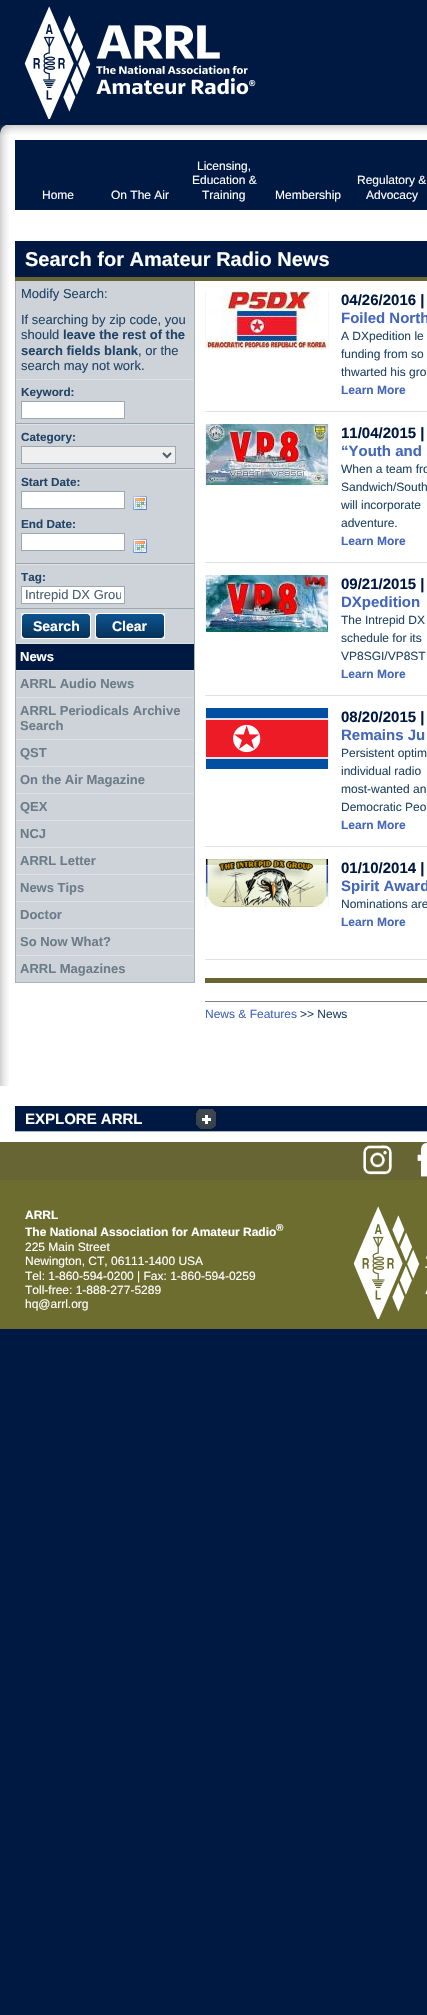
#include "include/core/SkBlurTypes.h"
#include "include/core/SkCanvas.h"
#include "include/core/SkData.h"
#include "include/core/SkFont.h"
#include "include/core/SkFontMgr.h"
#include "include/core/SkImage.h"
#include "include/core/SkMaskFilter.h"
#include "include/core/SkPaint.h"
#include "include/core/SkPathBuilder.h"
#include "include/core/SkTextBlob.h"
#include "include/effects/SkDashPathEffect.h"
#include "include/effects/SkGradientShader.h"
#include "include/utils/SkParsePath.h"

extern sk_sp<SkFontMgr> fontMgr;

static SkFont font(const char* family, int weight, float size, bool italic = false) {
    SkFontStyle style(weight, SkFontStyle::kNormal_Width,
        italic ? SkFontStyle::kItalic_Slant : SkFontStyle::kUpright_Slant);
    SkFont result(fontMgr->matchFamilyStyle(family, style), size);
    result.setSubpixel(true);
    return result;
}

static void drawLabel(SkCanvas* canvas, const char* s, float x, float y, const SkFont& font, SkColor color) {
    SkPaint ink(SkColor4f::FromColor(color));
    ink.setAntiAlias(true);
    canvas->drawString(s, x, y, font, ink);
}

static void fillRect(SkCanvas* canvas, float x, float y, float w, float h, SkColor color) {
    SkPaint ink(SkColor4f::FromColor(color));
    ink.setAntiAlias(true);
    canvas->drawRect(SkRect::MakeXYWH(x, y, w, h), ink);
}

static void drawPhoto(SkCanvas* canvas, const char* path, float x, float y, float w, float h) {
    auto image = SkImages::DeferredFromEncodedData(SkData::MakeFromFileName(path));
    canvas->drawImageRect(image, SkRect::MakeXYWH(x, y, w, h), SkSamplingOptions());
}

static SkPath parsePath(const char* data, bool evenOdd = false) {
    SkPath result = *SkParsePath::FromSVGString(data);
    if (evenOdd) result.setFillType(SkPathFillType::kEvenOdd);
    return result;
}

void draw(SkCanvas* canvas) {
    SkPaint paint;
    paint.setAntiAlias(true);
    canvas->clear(0xFF001943);
    drawPhoto(canvas, "assets/img1.png", 24, 6, 232, 113);
    fillRect(canvas, 9, 135, 418, 951, 0xFFFFFFFF);
    drawPhoto(canvas, "assets/img2.png", 0, 135, 9, 951);
    drawPhoto(canvas, "assets/img3.png", 0, 125, 427, 10);
    fillRect(canvas, 15, 140, 412, 70, 0xFF001943);
    SkFont font1 = font("Liberation Sans", 400, 12);
    drawLabel(canvas, "Home", 42, 199, font1, 0xFFFFFFFF);
    drawLabel(canvas, "On The Air", 111, 199, font1, 0xFFFFFFFF);
    drawLabel(canvas, "Licensing,", 197, 170, font1, 0xFFFFFFFF);
    drawLabel(canvas, "Education &", 192, 184, font1, 0xFFFFFFFF);
    drawLabel(canvas, "Training", 202, 199, font1, 0xFFFFFFFF);
    drawLabel(canvas, "Membership", 275, 199, font1, 0xFFFFFFFF);
    drawLabel(canvas, "Regulatory &", 357, 184, font1, 0xFFFFFFFF);
    drawLabel(canvas, "Advocacy", 366, 199, font1, 0xFFFFFFFF);
    fillRect(canvas, 15, 241, 412, 36, 0xFF001943);
    fillRect(canvas, 15, 277, 412, 4, 0xFF676534);
    SkFont font2 = font("Liberation Sans", 700, 20);
    drawLabel(canvas, "Search for Amateur Radio News", 25, 266, font2, 0xFFFFFFFF);
    fillRect(canvas, 16, 281, 178, 701, 0xFFCDD3D9);
    fillRect(canvas, 194, 281, 1, 702, 0xFFA7B2BA);
    fillRect(canvas, 15, 982, 180, 1, 0xFFA7B2BA);
    fillRect(canvas, 15, 281, 1, 702, 0xFFA7B2BA);
    SkFont font3 = font("Liberation Sans", 400, 13);
    drawLabel(canvas, "Modify Search:", 21, 298, font3, 0xFF224466);
    drawLabel(canvas, "If searching by zip code, you", 21, 324, font3, 0xFF224466);
    drawLabel(canvas, "should", 21, 339, font3, 0xFF224466);
    SkFont font4 = font("Liberation Sans", 700, 13);
    drawLabel(canvas, "leave the rest of the", 63, 339, font4, 0xFF224466);
    drawLabel(canvas, "search fields blank", 21, 355, font4, 0xFF224466);
    drawLabel(canvas, ", or the", 138, 355, font3, 0xFF224466);
    drawLabel(canvas, "search may not work.", 21, 370, font3, 0xFF224466);
    fillRect(canvas, 16, 379, 178, 1, 0xFFDCE0E4);
    fillRect(canvas, 16, 423, 178, 1, 0xFF9CA7B0);
    SkFont font5 = font("Liberation Sans", 700, 11.75f);
    drawLabel(canvas, "Keyword:", 21, 396, font5, 0xFF224466);
    paint.setColor(0xFFFFFFFF);
    canvas->drawRect(SkRect::MakeXYWH(21.5f, 401.5f, 103, 17), paint);
    paint.setStroke(true);
    paint.setStrokeWidth(1);
    paint.setColor(0xFF9CA7B0);
    canvas->drawRect(SkRect::MakeXYWH(21.5f, 401.5f, 103, 17), paint);
    fillRect(canvas, 16, 424, 178, 1, 0xFFDCE0E4);
    fillRect(canvas, 16, 468, 178, 1, 0xFF9CA7B0);
    drawLabel(canvas, "Category:", 21, 441, font5, 0xFF224466);
    paint.setStroke(false);
    paint.setColor(0xFFEFEFEF);
    canvas->drawRect(SkRect::MakeXYWH(21.5f, 446.5f, 154, 17), paint);
    paint.setStroke(true);
    paint.setColor(0xFF9CA7B0);
    canvas->drawRect(SkRect::MakeXYWH(21.5f, 446.5f, 154, 17), paint);
    paint.setStrokeWidth(2);
    paint.setColor(0xFF4A5F71);
    canvas->drawPath(parsePath("M163 453L167 457L171 453"), paint);
    fillRect(canvas, 16, 469, 178, 1, 0xFFDCE0E4);
    fillRect(canvas, 16, 563, 178, 1, 0xFF9CA7B0);
    drawLabel(canvas, "Start Date:", 21, 486, font5, 0xFF224466);
    paint.setStroke(false);
    paint.setColor(0xFFFFFFFF);
    canvas->drawRect(SkRect::MakeXYWH(21.5f, 491.5f, 103, 17), paint);
    paint.setStroke(true);
    paint.setStrokeWidth(1);
    paint.setColor(0xFF9CA7B0);
    canvas->drawRect(SkRect::MakeXYWH(21.5f, 491.5f, 103, 17), paint);
    drawPhoto(canvas, "assets/img4.png", 133, 496, 14, 14);
    drawLabel(canvas, "End Date:", 21, 528, font5, 0xFF224466);
    paint.setStroke(false);
    paint.setColor(0xFFFFFFFF);
    canvas->drawRect(SkRect::MakeXYWH(21.5f, 533.5f, 103, 17), paint);
    paint.setStroke(true);
    paint.setColor(0xFF9CA7B0);
    canvas->drawRect(SkRect::MakeXYWH(21.5f, 533.5f, 103, 17), paint);
    drawPhoto(canvas, "assets/img4.png", 133, 539, 14, 14);
    fillRect(canvas, 16, 564, 178, 1, 0xFFDCE0E4);
    fillRect(canvas, 16, 608, 178, 1, 0xFF9CA7B0);
    drawLabel(canvas, "Tag:", 21, 581, font5, 0xFF224466);
    paint.setStroke(false);
    paint.setColor(0xFFFFFFFF);
    canvas->drawRect(SkRect::MakeXYWH(21.5f, 586.5f, 103, 17), paint);
    paint.setStroke(true);
    paint.setColor(0xFF9CA7B0);
    canvas->drawRect(SkRect::MakeXYWH(21.5f, 586.5f, 103, 17), paint);
    canvas->save();
    canvas->clipRect(SkRect::MakeXYWH(25, 587, 96, 15));
    drawLabel(canvas, "Intrepid DX Grou", 25, 599, font3, 0xFF4A5F71);
    canvas->restore();
    drawPhoto(canvas, "assets/img5.png", 21, 613, 70, 26);
    SkFont font6 = font("Liberation Sans", 700, 14);
    drawLabel(canvas, "Search", 33, 631, font6, 0xFFFFFFFF);
    drawPhoto(canvas, "assets/img5.png", 95, 613, 70, 26);
    drawLabel(canvas, "Clear", 112, 631, font6, 0xFFFFFFFF);
    fillRect(canvas, 16, 643, 178, 1, 0xFFDCE0E4);
    fillRect(canvas, 16, 644, 178, 26, 0xFF001943);
    drawLabel(canvas, "News", 20, 661, font4, 0xFFFFFFFF);
    fillRect(canvas, 16, 670, 178, 1, 0xFFDCE0E4);
    drawLabel(canvas, "ARRL Audio News", 20, 688, font4, 0xFF6C7C88);
    fillRect(canvas, 16, 697, 178, 1, 0xFFDCE0E4);
    drawLabel(canvas, "ARRL Periodicals Archive", 20, 715, font4, 0xFF6C7C88);
    drawLabel(canvas, "Search", 20, 730, font4, 0xFF6C7C88);
    fillRect(canvas, 16, 739, 178, 1, 0xFFDCE0E4);
    drawLabel(canvas, "QST", 20, 757, font4, 0xFF6C7C88);
    fillRect(canvas, 16, 766, 178, 1, 0xFFDCE0E4);
    drawLabel(canvas, "On the Air Magazine", 20, 784, font4, 0xFF6C7C88);
    fillRect(canvas, 16, 793, 178, 1, 0xFFDCE0E4);
    drawLabel(canvas, "QEX", 20, 811, font4, 0xFF6C7C88);
    fillRect(canvas, 16, 820, 178, 1, 0xFFDCE0E4);
    drawLabel(canvas, "NCJ", 20, 838, font4, 0xFF6C7C88);
    fillRect(canvas, 16, 847, 178, 1, 0xFFDCE0E4);
    drawLabel(canvas, "ARRL Letter", 20, 865, font4, 0xFF6C7C88);
    fillRect(canvas, 16, 874, 178, 1, 0xFFDCE0E4);
    drawLabel(canvas, "News Tips", 20, 892, font4, 0xFF6C7C88);
    fillRect(canvas, 16, 901, 178, 1, 0xFFDCE0E4);
    drawLabel(canvas, "Doctor", 20, 919, font4, 0xFF6C7C88);
    fillRect(canvas, 16, 928, 178, 1, 0xFFDCE0E4);
    drawLabel(canvas, "So Now What?", 20, 946, font4, 0xFF6C7C88);
    fillRect(canvas, 16, 955, 178, 1, 0xFFDCE0E4);
    drawLabel(canvas, "ARRL Magazines", 20, 973, font4, 0xFF6C7C88);
    fillRect(canvas, 205, 411, 222, 1, 0xFFDFE2E5);
    fillRect(canvas, 205, 291, 124, 58, 0xFFF5F5F5);
    drawPhoto(canvas, "assets/img6.png", 206, 291, 122, 58);
    SkFont font7 = font("Liberation Sans", 700, 15);
    drawLabel(canvas, "04/26/2016 |", 341, 305, font7, 0xFF001943);
    drawLabel(canvas, "Foiled North", 341, 323, font7, 0xFF4466BB);
    drawLabel(canvas, "A DXpedition le", 341, 340, font1, 0xFF224466);
    drawLabel(canvas, "funding from so", 341, 358, font1, 0xFF224466);
    drawLabel(canvas, "thwarted his gro", 341, 376, font1, 0xFF224466);
    SkFont font8 = font("Liberation Sans", 700, 12);
    drawLabel(canvas, "Learn More", 341, 394, font8, 0xFF4466BB);
    fillRect(canvas, 205, 562, 222, 1, 0xFFDFE2E5);
    fillRect(canvas, 205, 424, 124, 61, 0xFFF5F5F5);
    drawPhoto(canvas, "assets/img7.png", 206, 424, 122, 61);
    drawLabel(canvas, "11/04/2015 |", 341, 438, font7, 0xFF001943);
    drawLabel(canvas, "“Youth and", 341, 456, font7, 0xFF4466BB);
    drawLabel(canvas, "When a team fro", 341, 473, font1, 0xFF224466);
    drawLabel(canvas, "Sandwich/South", 341, 491, font1, 0xFF224466);
    drawLabel(canvas, "will incorporate", 341, 509, font1, 0xFF224466);
    drawLabel(canvas, "adventure.", 341, 527, font1, 0xFF224466);
    drawLabel(canvas, "Learn More", 341, 545, font8, 0xFF4466BB);
    fillRect(canvas, 205, 695, 222, 1, 0xFFDFE2E5);
    fillRect(canvas, 205, 575, 124, 57, 0xFFF5F5F5);
    drawPhoto(canvas, "assets/img8.png", 206, 575, 122, 57);
    drawLabel(canvas, "09/21/2015 |", 341, 589, font7, 0xFF001943);
    drawLabel(canvas, "DXpedition", 341, 607, font7, 0xFF4466BB);
    drawLabel(canvas, "The Intrepid DX", 341, 624, font1, 0xFF224466);
    drawLabel(canvas, "schedule for its", 341, 642, font1, 0xFF224466);
    drawLabel(canvas, "VP8SGI/VP8ST", 341, 660, font1, 0xFF224466);
    drawLabel(canvas, "Learn More", 341, 678, font8, 0xFF4466BB);
    fillRect(canvas, 205, 846, 222, 1, 0xFFDFE2E5);
    fillRect(canvas, 205, 708, 124, 61, 0xFFF5F5F5);
    drawPhoto(canvas, "assets/img9.png", 206, 708, 122, 61);
    drawLabel(canvas, "08/20/2015 |", 341, 722, font7, 0xFF001943);
    drawLabel(canvas, "Remains Ju", 341, 740, font7, 0xFF4466BB);
    drawLabel(canvas, "Persistent optim", 341, 757, font1, 0xFF224466);
    drawLabel(canvas, "individual radio", 341, 775, font1, 0xFF224466);
    drawLabel(canvas, "most-wanted an", 341, 793, font1, 0xFF224466);
    drawLabel(canvas, "Democratic Peo", 341, 811, font1, 0xFF224466);
    drawLabel(canvas, "Learn More", 341, 829, font8, 0xFF4466BB);
    fillRect(canvas, 205, 959, 222, 1, 0xFFDFE2E5);
    fillRect(canvas, 205, 859, 124, 48, 0xFFF5F5F5);
    drawPhoto(canvas, "assets/img10.png", 206, 859, 122, 48);
    drawLabel(canvas, "01/10/2014 |", 341, 873, font7, 0xFF001943);
    drawLabel(canvas, "Spirit Award", 341, 891, font7, 0xFF4466BB);
    drawLabel(canvas, "Nominations are", 341, 908, font1, 0xFF224466);
    drawLabel(canvas, "Learn More", 341, 926, font8, 0xFF4466BB);
    fillRect(canvas, 205, 978, 222, 5, 0xFF676534);
    fillRect(canvas, 205, 1001, 222, 1, 0xFF808080);
    drawLabel(canvas, "News & Features", 205, 1018, font1, 0xFF4466BB);
    drawLabel(canvas, ">> News", 300, 1018, font1, 0xFF224466);
    fillRect(canvas, 0, 1086, 427, 56, 0xFFFFFFFF);
    fillRect(canvas, 15, 1106, 412, 25, 0xFF001943);
    fillRect(canvas, 15, 1131, 412, 1, 0xFFA7B2BA);
    drawPhoto(canvas, "assets/img11.png", 196, 1109, 20, 20);
    drawLabel(canvas, "EXPLORE ARRL", 25, 1124, font7, 0xFFFFFFFF);
    fillRect(canvas, 0, 1142, 427, 38, 0xFF676534);
    drawPhoto(canvas, "assets/img12.png", 363, 1145, 29, 30);
    drawPhoto(canvas, "assets/img13.png", 417, 1142, 10, 35);
    fillRect(canvas, 0, 1180, 427, 149, 0xFF6D6D2F);
    drawLabel(canvas, "ARRL", 25, 1219, font8, 0xFFFFFFFF);
    drawLabel(canvas, "The National Association for Amateur Radio", 25, 1236, font8, 0xFFFFFFFF);
    SkFont font9 = font("Liberation Sans", 700, 10);
    drawLabel(canvas, "®", 276, 1231, font9, 0xFFFFFFFF);
    drawLabel(canvas, "225 Main Street", 25, 1251, font1, 0xFFFFFFFF);
    drawLabel(canvas, "Newington, CT, 06111-1400 USA", 25, 1265, font1, 0xFFFFFFFF);
    drawLabel(canvas, "Tel: 1-860-594-0200 | Fax: 1-860-594-0259", 25, 1280, font1, 0xFFFFFFFF);
    drawLabel(canvas, "Toll-free: 1-888-277-5289", 25, 1294, font1, 0xFFFFFFFF);
    drawLabel(canvas, "hq@arrl.org", 25, 1308, font1, 0xFFFFFFFF);
    drawPhoto(canvas, "assets/img14.png", 353, 1206, 74, 113);
}
